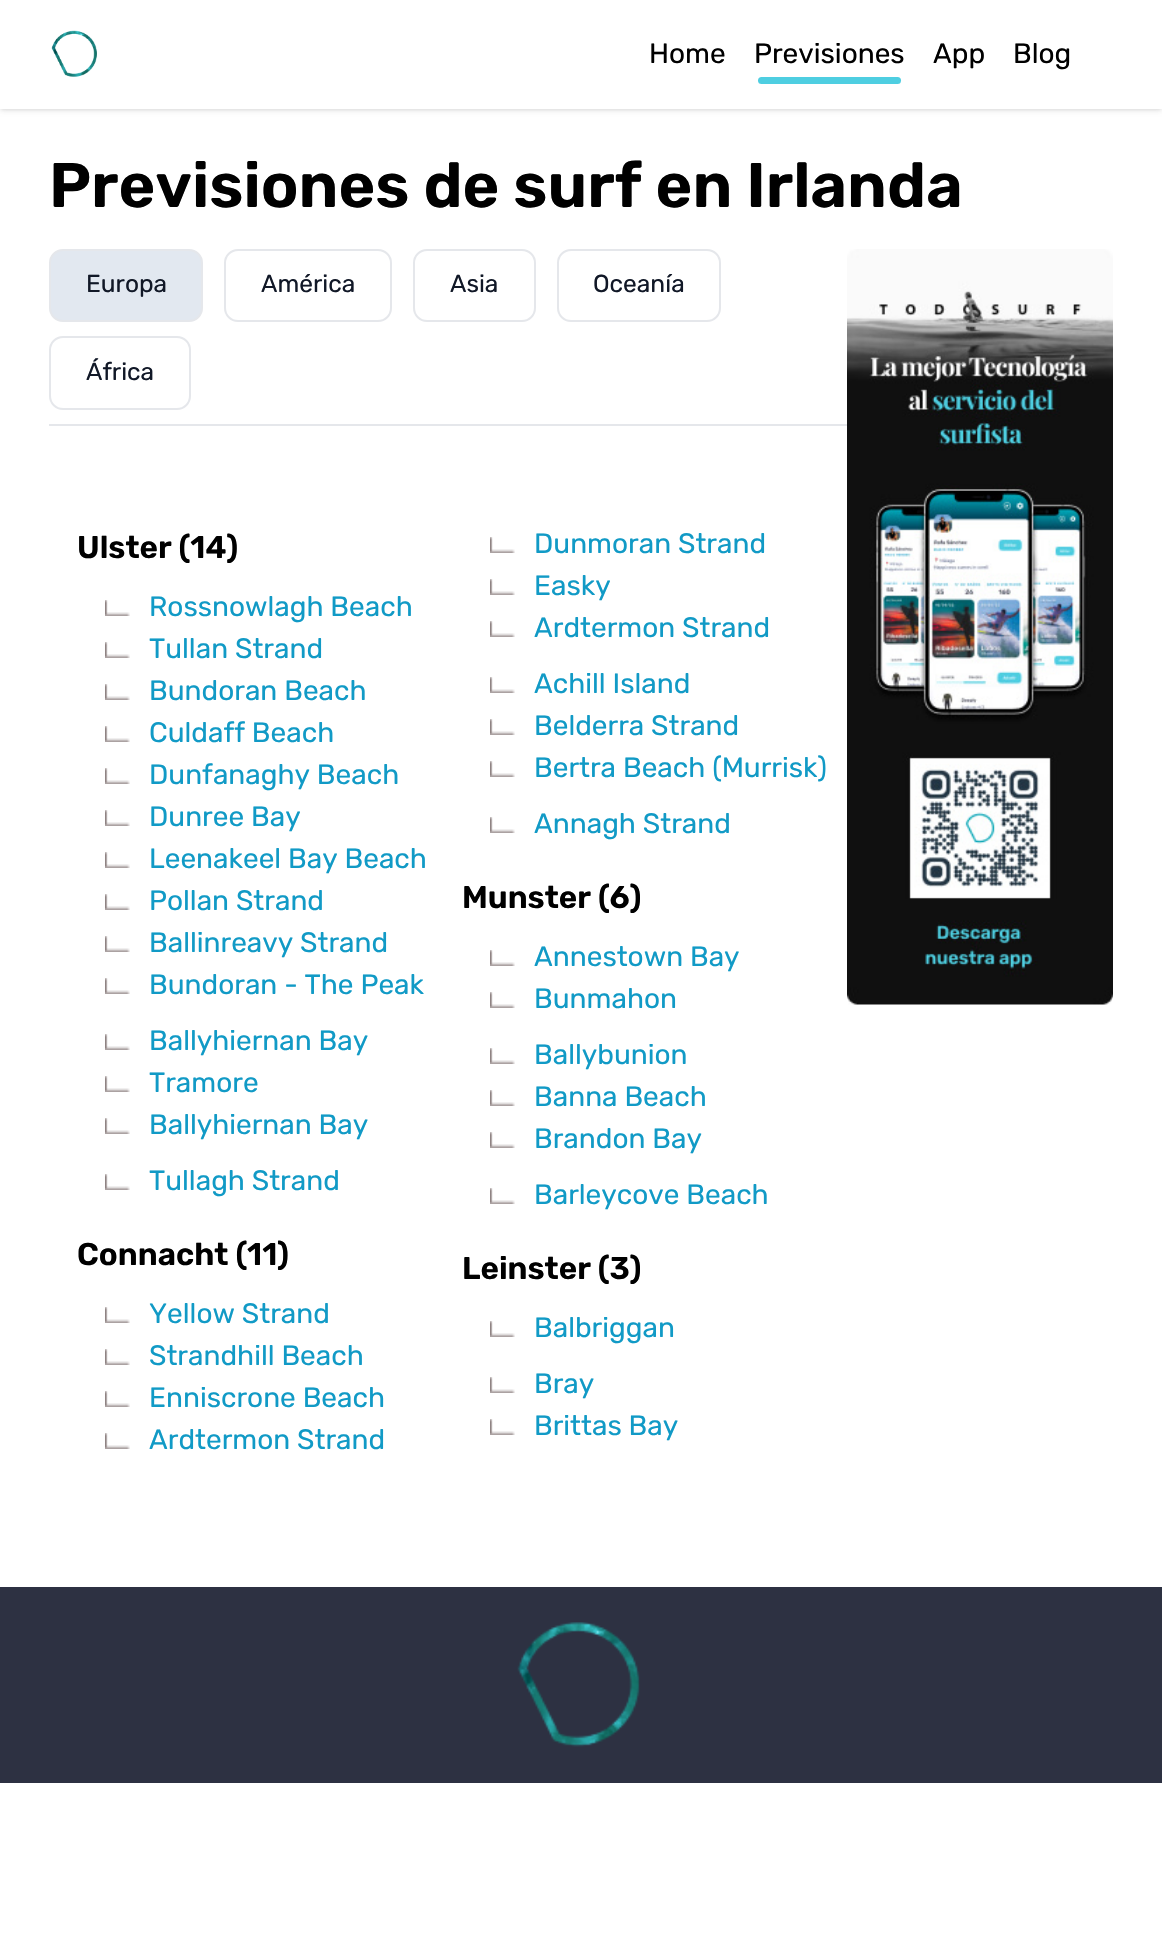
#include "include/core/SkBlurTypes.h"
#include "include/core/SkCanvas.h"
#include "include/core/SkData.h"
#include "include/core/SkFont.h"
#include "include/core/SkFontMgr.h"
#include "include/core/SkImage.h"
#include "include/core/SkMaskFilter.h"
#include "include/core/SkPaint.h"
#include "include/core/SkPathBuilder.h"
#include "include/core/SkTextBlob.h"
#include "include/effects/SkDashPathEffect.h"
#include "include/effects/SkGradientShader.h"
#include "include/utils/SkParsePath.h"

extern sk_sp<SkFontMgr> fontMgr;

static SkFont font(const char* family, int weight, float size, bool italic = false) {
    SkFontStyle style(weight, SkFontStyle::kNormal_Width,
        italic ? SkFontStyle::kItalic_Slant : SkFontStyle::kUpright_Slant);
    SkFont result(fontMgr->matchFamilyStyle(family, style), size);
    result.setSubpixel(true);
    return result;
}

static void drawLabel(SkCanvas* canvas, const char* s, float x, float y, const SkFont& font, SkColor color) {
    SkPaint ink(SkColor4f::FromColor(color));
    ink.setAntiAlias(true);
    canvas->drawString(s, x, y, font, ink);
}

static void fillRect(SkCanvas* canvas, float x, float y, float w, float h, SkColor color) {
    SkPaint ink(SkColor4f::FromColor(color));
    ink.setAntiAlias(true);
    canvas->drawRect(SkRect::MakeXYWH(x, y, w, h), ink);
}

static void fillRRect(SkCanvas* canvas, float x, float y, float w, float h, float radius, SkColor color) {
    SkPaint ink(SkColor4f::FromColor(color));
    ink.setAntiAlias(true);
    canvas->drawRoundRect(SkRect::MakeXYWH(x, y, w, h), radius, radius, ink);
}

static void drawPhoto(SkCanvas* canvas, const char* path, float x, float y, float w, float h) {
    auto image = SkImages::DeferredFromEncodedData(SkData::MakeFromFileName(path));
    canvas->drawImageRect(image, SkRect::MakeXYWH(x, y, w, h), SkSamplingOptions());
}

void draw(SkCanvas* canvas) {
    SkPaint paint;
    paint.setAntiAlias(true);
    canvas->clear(0xFFFFFFFF);
    paint.setColor(0x1A000000);
    paint.setMaskFilter(SkMaskFilter::MakeBlur(kNormal_SkBlurStyle, 2));
    canvas->drawRect(SkRect::MakeXYWH(2, 4, 1158, 105), paint);
    paint.setMaskFilter(nullptr);
    paint.setMaskFilter(SkMaskFilter::MakeBlur(kNormal_SkBlurStyle, 2.5f));
    canvas->drawRect(SkRect::MakeXYWH(0, 2, 1162, 108), paint);
    paint.setMaskFilter(nullptr);
    fillRect(canvas, 0, 0, 1162, 109, 0xFFFFFFFF);
    drawPhoto(canvas, "assets/img1.png", 51, 30, 46, 47);
    SkFont font1 = font("Rubik", 300, 28);
    drawLabel(canvas, "Home", 649, 63, font1, 0xFF000000);
    drawLabel(canvas, "Previsiones", 754, 63, font1, 0xFF000000);
    fillRRect(canvas, 758, 77, 143, 7, 3.5f, 0xFF4ECEE1);
    drawLabel(canvas, "App", 933, 63, font1, 0xFF000000);
    drawLabel(canvas, "Blog", 1013, 63, font1, 0xFF000000);
    SkFont font2 = font("Rubik", 600, 63);
    drawLabel(canvas, "Previsiones de surf en Irlanda", 49, 207, font2, 0xFF000000);
    paint.setColor(0xFFE2E8F0);
    canvas->drawRoundRect(SkRect::MakeXYWH(50, 250, 152, 71), 13, 13, paint);
    paint.setStroke(true);
    paint.setStrokeWidth(2);
    paint.setColor(0xFFE5E7EB);
    canvas->drawRoundRect(SkRect::MakeXYWH(50, 250, 152, 71), 13, 13, paint);
    SkFont font3 = font("Rubik", 300, 24.5f);
    drawLabel(canvas, "Europa", 86, 292, font3, 0xFF111827);
    canvas->drawRoundRect(SkRect::MakeXYWH(225, 250, 166, 71), 13, 13, paint);
    drawLabel(canvas, "América", 261, 292, font3, 0xFF111827);
    canvas->drawRoundRect(SkRect::MakeXYWH(414, 250, 121, 71), 13, 13, paint);
    drawLabel(canvas, "Asia", 450, 292, font3, 0xFF111827);
    canvas->drawRoundRect(SkRect::MakeXYWH(558, 250, 162, 71), 13, 13, paint);
    drawLabel(canvas, "Oceanía", 593, 292, font3, 0xFF111827);
    canvas->drawRoundRect(SkRect::MakeXYWH(50, 337, 140, 72), 13, 13, paint);
    drawLabel(canvas, "África", 86, 380, font3, 0xFF111827);
    fillRect(canvas, 49, 424, 798, 2, 0xFFE5E7EB);
    drawPhoto(canvas, "assets/img2.png", 490, 537, 25, 16);
    drawLabel(canvas, "Dunmoran Strand", 534, 553, font1, 0xFF119AC6);
    drawPhoto(canvas, "assets/img2.png", 490, 579, 25, 16);
    drawLabel(canvas, "Easky", 534, 595, font1, 0xFF119AC6);
    drawPhoto(canvas, "assets/img2.png", 490, 621, 25, 16);
    drawLabel(canvas, "Ardtermon Strand", 534, 637, font1, 0xFF119AC6);
    drawPhoto(canvas, "assets/img2.png", 105, 1307, 25, 16);
    drawLabel(canvas, "Yellow Strand", 149, 1323, font1, 0xFF119AC6);
    drawPhoto(canvas, "assets/img2.png", 105, 1349, 25, 16);
    drawLabel(canvas, "Strandhill Beach", 149, 1365, font1, 0xFF119AC6);
    drawPhoto(canvas, "assets/img2.png", 105, 1391, 25, 16);
    drawLabel(canvas, "Enniscrone Beach", 149, 1407, font1, 0xFF119AC6);
    drawPhoto(canvas, "assets/img2.png", 105, 1433, 25, 16);
    drawLabel(canvas, "Ardtermon Strand", 149, 1449, font1, 0xFF119AC6);
    drawPhoto(canvas, "assets/img2.png", 490, 677, 25, 16);
    drawLabel(canvas, "Achill Island", 534, 693, font1, 0xFF119AC6);
    drawPhoto(canvas, "assets/img2.png", 490, 719, 25, 16);
    drawLabel(canvas, "Belderra Strand", 534, 735, font1, 0xFF119AC6);
    drawPhoto(canvas, "assets/img2.png", 490, 761, 25, 16);
    drawLabel(canvas, "Bertra Beach (Murrisk)", 534, 777, font1, 0xFF119AC6);
    drawPhoto(canvas, "assets/img2.png", 490, 817, 25, 16);
    drawLabel(canvas, "Annagh Strand", 534, 833, font1, 0xFF119AC6);
    SkFont font4 = font("Rubik", 600, 31.5f);
    drawLabel(canvas, "Connacht (11)", 77, 1265, font4, 0xFF000000);
    drawLabel(canvas, "Ulster (14)", 77, 558, font4, 0xFF000000);
    drawPhoto(canvas, "assets/img2.png", 105, 600, 25, 16);
    drawLabel(canvas, "Rossnowlagh Beach", 149, 616, font1, 0xFF119AC6);
    drawPhoto(canvas, "assets/img2.png", 105, 642, 25, 16);
    drawLabel(canvas, "Tullan Strand", 149, 658, font1, 0xFF119AC6);
    drawPhoto(canvas, "assets/img2.png", 105, 684, 25, 16);
    drawLabel(canvas, "Bundoran Beach", 149, 700, font1, 0xFF119AC6);
    drawPhoto(canvas, "assets/img2.png", 105, 726, 25, 16);
    drawLabel(canvas, "Culdaff Beach", 149, 742, font1, 0xFF119AC6);
    drawPhoto(canvas, "assets/img2.png", 105, 768, 25, 16);
    drawLabel(canvas, "Dunfanaghy Beach", 149, 784, font1, 0xFF119AC6);
    drawPhoto(canvas, "assets/img2.png", 105, 810, 25, 16);
    drawLabel(canvas, "Dunree Bay", 149, 826, font1, 0xFF119AC6);
    drawPhoto(canvas, "assets/img2.png", 105, 852, 25, 16);
    drawLabel(canvas, "Leenakeel Bay Beach", 149, 868, font1, 0xFF119AC6);
    drawPhoto(canvas, "assets/img2.png", 105, 894, 25, 16);
    drawLabel(canvas, "Pollan Strand", 149, 910, font1, 0xFF119AC6);
    drawPhoto(canvas, "assets/img2.png", 105, 936, 25, 16);
    drawLabel(canvas, "Ballinreavy Strand", 149, 952, font1, 0xFF119AC6);
    drawPhoto(canvas, "assets/img2.png", 105, 978, 25, 16);
    drawLabel(canvas, "Bundoran - The Peak", 149, 994, font1, 0xFF119AC6);
    drawPhoto(canvas, "assets/img2.png", 105, 1034, 25, 16);
    drawLabel(canvas, "Ballyhiernan Bay", 149, 1050, font1, 0xFF119AC6);
    drawPhoto(canvas, "assets/img2.png", 105, 1076, 25, 16);
    drawLabel(canvas, "Tramore", 149, 1092, font1, 0xFF119AC6);
    drawPhoto(canvas, "assets/img2.png", 105, 1118, 25, 16);
    drawLabel(canvas, "Ballyhiernan Bay", 149, 1134, font1, 0xFF119AC6);
    drawPhoto(canvas, "assets/img2.png", 105, 1174, 25, 16);
    drawLabel(canvas, "Tullagh Strand", 149, 1190, font1, 0xFF119AC6);
    drawLabel(canvas, "Munster (6)", 462, 908, font4, 0xFF000000);
    drawPhoto(canvas, "assets/img2.png", 490, 950, 25, 16);
    drawLabel(canvas, "Annestown Bay", 534, 966, font1, 0xFF119AC6);
    drawPhoto(canvas, "assets/img2.png", 490, 992, 25, 16);
    drawLabel(canvas, "Bunmahon", 534, 1008, font1, 0xFF119AC6);
    drawPhoto(canvas, "assets/img2.png", 490, 1048, 25, 16);
    drawLabel(canvas, "Ballybunion", 534, 1064, font1, 0xFF119AC6);
    drawPhoto(canvas, "assets/img2.png", 490, 1090, 25, 16);
    drawLabel(canvas, "Banna Beach", 534, 1106, font1, 0xFF119AC6);
    drawPhoto(canvas, "assets/img2.png", 490, 1132, 25, 16);
    drawLabel(canvas, "Brandon Bay", 534, 1148, font1, 0xFF119AC6);
    drawPhoto(canvas, "assets/img2.png", 490, 1188, 25, 16);
    drawLabel(canvas, "Barleycove Beach", 534, 1204, font1, 0xFF119AC6);
    drawLabel(canvas, "Leinster (3)", 462, 1279, font4, 0xFF000000);
    drawPhoto(canvas, "assets/img2.png", 490, 1321, 25, 16);
    drawLabel(canvas, "Balbriggan", 534, 1337, font1, 0xFF119AC6);
    drawPhoto(canvas, "assets/img2.png", 490, 1377, 25, 16);
    drawLabel(canvas, "Bray", 534, 1393, font1, 0xFF119AC6);
    drawPhoto(canvas, "assets/img2.png", 490, 1419, 25, 16);
    drawLabel(canvas, "Brittas Bay", 534, 1435, font1, 0xFF119AC6);
    drawPhoto(canvas, "assets/img3.png", 847, 249, 266, 756);
    fillRect(canvas, 0, 1587, 1162, 196, 0xFF2D3142);
    drawPhoto(canvas, "assets/img4.png", 517, 1622, 123, 125);
}
